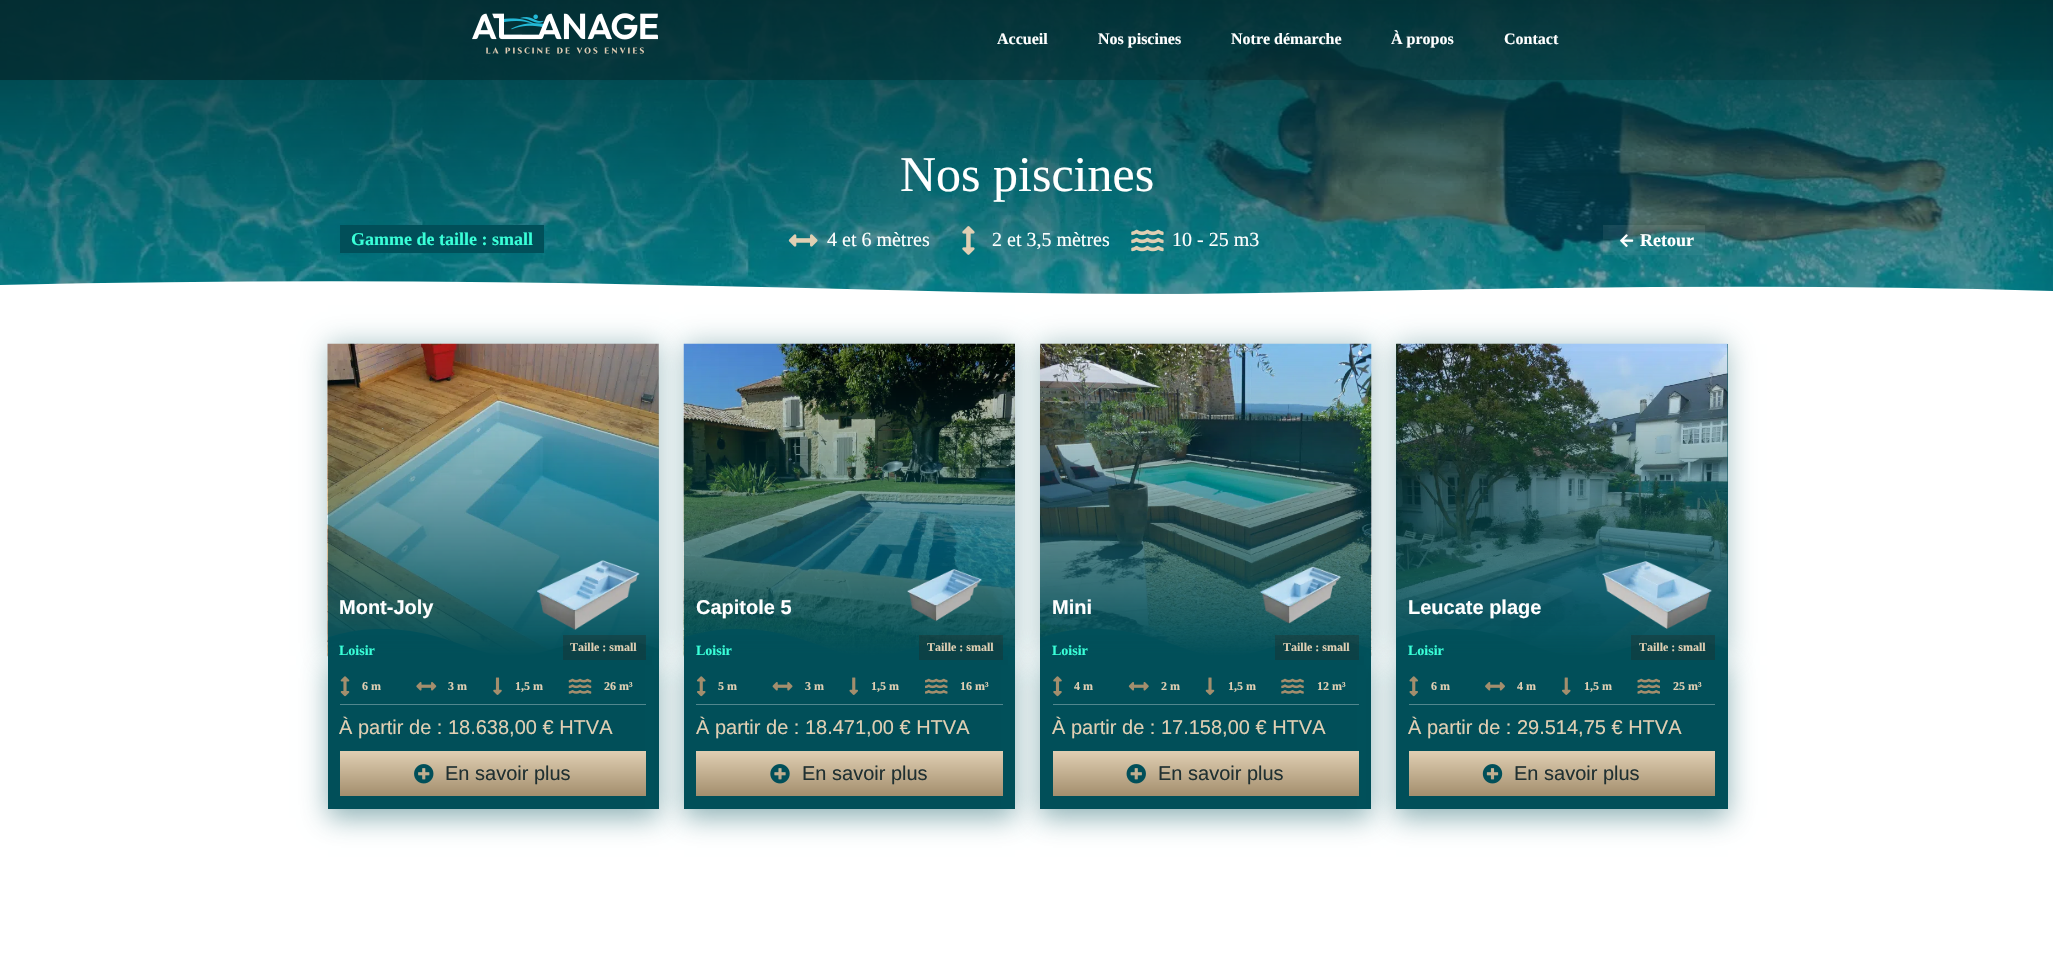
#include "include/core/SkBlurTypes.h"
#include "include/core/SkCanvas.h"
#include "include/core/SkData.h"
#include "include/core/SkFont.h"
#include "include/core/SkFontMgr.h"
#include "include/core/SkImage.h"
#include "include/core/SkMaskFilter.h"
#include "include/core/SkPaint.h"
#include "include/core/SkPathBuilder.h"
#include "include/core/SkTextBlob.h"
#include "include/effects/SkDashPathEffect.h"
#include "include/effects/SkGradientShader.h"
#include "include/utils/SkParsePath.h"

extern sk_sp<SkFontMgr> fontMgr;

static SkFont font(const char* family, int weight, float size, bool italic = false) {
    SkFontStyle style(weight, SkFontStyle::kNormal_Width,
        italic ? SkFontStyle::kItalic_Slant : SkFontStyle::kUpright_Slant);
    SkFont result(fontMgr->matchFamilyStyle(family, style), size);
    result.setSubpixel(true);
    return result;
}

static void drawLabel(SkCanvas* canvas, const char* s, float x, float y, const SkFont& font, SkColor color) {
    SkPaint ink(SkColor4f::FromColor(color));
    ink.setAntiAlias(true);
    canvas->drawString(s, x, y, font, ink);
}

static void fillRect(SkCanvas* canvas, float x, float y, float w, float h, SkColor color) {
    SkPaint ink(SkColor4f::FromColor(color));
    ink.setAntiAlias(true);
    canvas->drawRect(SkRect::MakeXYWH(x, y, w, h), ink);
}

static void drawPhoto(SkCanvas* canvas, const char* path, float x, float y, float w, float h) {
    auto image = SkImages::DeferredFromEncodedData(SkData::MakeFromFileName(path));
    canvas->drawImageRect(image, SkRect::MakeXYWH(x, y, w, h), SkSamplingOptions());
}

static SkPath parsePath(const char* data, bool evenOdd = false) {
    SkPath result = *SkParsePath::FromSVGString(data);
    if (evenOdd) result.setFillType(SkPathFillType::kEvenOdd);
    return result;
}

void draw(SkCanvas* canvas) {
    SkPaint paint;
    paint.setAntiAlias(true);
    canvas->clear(0xFFFFFFFF);
    drawPhoto(canvas, "assets/img2.png", 0, 0, 2053, 294);
    {
        const SkColor colors[] = {0xEB002B30, 0x87014F59};
        const float stops[] = {0, 1};
        const SkPoint ends[] = {{1027, 0}, {1027, 294}};
        paint.setShader(SkGradientShader::MakeLinear(ends, colors, stops, 2, SkTileMode::kClamp));
        paint.setAlpha(255);
    }
    canvas->drawRect(SkRect::MakeXYWH(0, 0, 2053, 294), paint);
    {
        const SkColor colors[] = {0xD1022B30, 0x38022B30};
        const float stops[] = {0, 1};
        const SkPoint ends[] = {{0, 40}, {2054, 40}};
        paint.setShader(SkGradientShader::MakeLinear(ends, colors, stops, 2, SkTileMode::kClamp));
        paint.setAlpha(255);
    }
    canvas->drawRect(SkRect::MakeXYWH(0, 0, 2053, 80), paint);
    drawPhoto(canvas, "assets/img1.png", 472, 13, 186, 41);
    SkFont font1 = font("Liberation Serif", 700, 16);
    drawLabel(canvas, "Accueil", 997, 44, font1, 0xFFFFFFFF);
    drawLabel(canvas, "Nos piscines", 1098, 44, font1, 0xFFFFFFFF);
    drawLabel(canvas, "Notre démarche", 1231, 44, font1, 0xFFFFFFFF);
    drawLabel(canvas, "À propos", 1391, 44, font1, 0xFFFFFFFF);
    drawLabel(canvas, "Contact", 1504, 44, font1, 0xFFFFFFFF);
    SkFont font2 = font("Liberation Serif", 400, 50);
    drawLabel(canvas, "Nos piscines", 900, 191, font2, 0xFFFFFFFF);
    fillRect(canvas, 340, 225, 204, 28, 0xFF014F59);
    SkFont font3 = font("Liberation Serif", 700, 18);
    drawLabel(canvas, "Gamme de taille : small", 351, 245, font3, 0xFF39FFD8);
    drawPhoto(canvas, "assets/img3.png", 788, 234, 30, 13);
    SkFont font4 = font("Liberation Serif", 400, 20);
    drawLabel(canvas, "4 et 6 mètres", 827, 246, font4, 0xFFFFFFFF);
    drawPhoto(canvas, "assets/img4.png", 962, 226, 13, 29);
    drawLabel(canvas, "2 et 3,5 mètres", 992, 246, font4, 0xFFFFFFFF);
    drawPhoto(canvas, "assets/img5.png", 1131, 229, 33, 23);
    drawLabel(canvas, "10 - 25 m3", 1172, 246, font4, 0xFFFFFFFF);
    fillRect(canvas, 1603, 225, 102, 30, 0x0AFFFFFF);
    {
        const SkColor colors[] = {0x0AFFFFFF, 0x00FFFFFF};
        const float stops[] = {0, 1};
        const SkPoint ends[] = {{1654, 225}, {1654, 255}};
        paint.setShader(SkGradientShader::MakeLinear(ends, colors, stops, 2, SkTileMode::kClamp));
        paint.setAlpha(255);
    }
    canvas->drawRect(SkRect::MakeXYWH(1603, 225, 102, 14), paint);
    drawPhoto(canvas, "assets/img6.png", 1620, 234, 14, 13);
    drawLabel(canvas, "Retour", 1640, 246, font3, 0xFFFFFFFF);
    paint.setShader(nullptr);
    paint.setColor(0xFFFFFFFF);
    canvas->drawPath(parsePath("M1187 294C1012 295 838 288 663 285C442 280 220 280-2 285V295H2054V291C1888 286 1722 286 1556 288C1433 289 1310 293 1187 294Z"), paint);
    paint.setColor(0x59014F59);
    paint.setMaskFilter(SkMaskFilter::MakeBlur(kNormal_SkBlurStyle, 13));
    canvas->drawRect(SkRect::MakeXYWH(328, 344, 331, 312), paint);
    paint.setMaskFilter(nullptr);
    drawPhoto(canvas, "assets/img7.png", 327, 343, 332, 314);
    {
        const SkColor colors[] = {0x00014F59, 0xFF014F59};
        const float stops[] = {0, 1};
        const SkPoint ends[] = {{493, 344}, {493, 656}};
        paint.setShader(SkGradientShader::MakeLinear(ends, colors, stops, 2, SkTileMode::kClamp));
        paint.setAlpha(255);
    }
    canvas->drawRect(SkRect::MakeXYWH(328, 351, 331, 305), paint);
    canvas->save();
    canvas->clipRect(SkRect::MakeXYWH(328, 629, 331, 29));
    paint.setShader(nullptr);
    paint.setColor(0xFF014F59);
    canvas->drawPath(parsePath("M518 656C495 658 473 648 451 641C411 627 366 624 326 638V658H659V649C631 638 596 637 567 645L549 650C539 653 529 655 518 656Z"), paint);
    canvas->restore();
    paint.setColor(0x70014F59);
    paint.setMaskFilter(SkMaskFilter::MakeBlur(kNormal_SkBlurStyle, 13));
    canvas->drawRect(SkRect::MakeXYWH(328, 665, 331, 153), paint);
    paint.setMaskFilter(nullptr);
    fillRect(canvas, 328, 656, 331, 153, 0xFF014F59);
    SkFont font5 = font("Liberation Sans", 700, 20);
    drawLabel(canvas, "Mont-Joly", 339, 614, font5, 0xFFFFFFFF);
    drawPhoto(canvas, "assets/img8.png", 537, 560, 103, 70);
    SkFont font6 = font("Liberation Serif", 700, 14);
    drawLabel(canvas, "Loisir", 339, 655, font6, 0xFF39FFD8);
    fillRect(canvas, 563, 635, 83, 25, 0x4D24201A);
    SkFont font7 = font("Liberation Serif", 700, 12);
    drawLabel(canvas, "Taille : small", 570, 651, font7, 0xFFE0CFB3);
    drawPhoto(canvas, "assets/img9.png", 340, 676, 10, 21);
    drawLabel(canvas, "6 m", 362, 690, font7, 0xFFE0CFB3);
    drawPhoto(canvas, "assets/img10.png", 416, 682, 21, 9);
    drawLabel(canvas, "3 m", 448, 690, font7, 0xFFE0CFB3);
    drawPhoto(canvas, "assets/img11.png", 493, 677, 9, 18);
    drawLabel(canvas, "1,5 m", 515, 690, font7, 0xFFE0CFB3);
    drawPhoto(canvas, "assets/img12.png", 568, 678, 24, 16);
    drawLabel(canvas, "26 m³", 604, 690, font7, 0xFFE0CFB3);
    fillRect(canvas, 340, 704, 306, 1, 0xFF52878E);
    SkFont font8 = font("Liberation Sans", 400, 20);
    drawLabel(canvas, "À partir de : 18.638,00 € HTVA", 339, 734, font8, 0xFFE0CFB3);
    {
        const SkColor colors[] = {0xFFE0CFB3, 0xFFA38E6D};
        const float stops[] = {0, 1};
        const SkPoint ends[] = {{493, 751}, {493, 796}};
        paint.setShader(SkGradientShader::MakeLinear(ends, colors, stops, 2, SkTileMode::kClamp));
        paint.setAlpha(255);
    }
    canvas->drawRect(SkRect::MakeXYWH(340, 751, 306, 45), paint);
    drawPhoto(canvas, "assets/img13.png", 414, 764, 20, 20);
    drawLabel(canvas, "En savoir plus", 445, 780, font8, 0xFF203031);
    paint.setShader(nullptr);
    paint.setColor(0x59014F59);
    paint.setMaskFilter(SkMaskFilter::MakeBlur(kNormal_SkBlurStyle, 13));
    canvas->drawRect(SkRect::MakeXYWH(684, 344, 331, 312), paint);
    paint.setMaskFilter(nullptr);
    drawPhoto(canvas, "assets/img14.png", 683, 343, 332, 314);
    canvas->save();
    canvas->clipRect(SkRect::MakeXYWH(684, 629, 331, 29));
    paint.setColor(0xFF014F59);
    canvas->drawPath(parsePath("M875 656C851 658 829 648 807 641C767 627 723 624 682 638V658H1015V649C987 638 952 637 923 645L905 650C895 653 885 655 875 656Z"), paint);
    canvas->restore();
    paint.setColor(0x70014F59);
    paint.setMaskFilter(SkMaskFilter::MakeBlur(kNormal_SkBlurStyle, 13));
    canvas->drawRect(SkRect::MakeXYWH(684, 665, 331, 153), paint);
    paint.setMaskFilter(nullptr);
    fillRect(canvas, 684, 656, 331, 153, 0xFF014F59);
    drawLabel(canvas, "Capitole 5", 696, 614, font5, 0xFFFFFFFF);
    drawPhoto(canvas, "assets/img15.png", 907, 569, 75, 52);
    drawLabel(canvas, "Loisir", 696, 655, font6, 0xFF39FFD8);
    fillRect(canvas, 919, 635, 84, 25, 0x4D24201A);
    drawLabel(canvas, "Taille : small", 927, 651, font7, 0xFFE0CFB3);
    drawPhoto(canvas, "assets/img16.png", 697, 676, 9, 21);
    drawLabel(canvas, "5 m", 718, 690, font7, 0xFFE0CFB3);
    drawPhoto(canvas, "assets/img17.png", 772, 682, 21, 9);
    drawLabel(canvas, "3 m", 805, 690, font7, 0xFFE0CFB3);
    drawPhoto(canvas, "assets/img18.png", 849, 677, 9, 18);
    drawLabel(canvas, "1,5 m", 871, 690, font7, 0xFFE0CFB3);
    drawPhoto(canvas, "assets/img19.png", 925, 678, 23, 16);
    drawLabel(canvas, "16 m³", 960, 690, font7, 0xFFE0CFB3);
    fillRect(canvas, 696, 704, 307, 1, 0xFF52878E);
    drawLabel(canvas, "À partir de : 18.471,00 € HTVA", 696, 734, font8, 0xFFE0CFB3);
    {
        const SkColor colors[] = {0xFFE0CFB3, 0xFFA38E6D};
        const float stops[] = {0, 1};
        const SkPoint ends[] = {{849, 751}, {849, 796}};
        paint.setShader(SkGradientShader::MakeLinear(ends, colors, stops, 2, SkTileMode::kClamp));
        paint.setAlpha(255);
    }
    canvas->drawRect(SkRect::MakeXYWH(696, 751, 307, 45), paint);
    drawPhoto(canvas, "assets/img20.png", 770, 764, 20, 20);
    drawLabel(canvas, "En savoir plus", 802, 780, font8, 0xFF203031);
    paint.setShader(nullptr);
    paint.setColor(0x59014F59);
    paint.setMaskFilter(SkMaskFilter::MakeBlur(kNormal_SkBlurStyle, 13));
    canvas->drawRect(SkRect::MakeXYWH(1040, 344, 331, 312), paint);
    paint.setMaskFilter(nullptr);
    drawPhoto(canvas, "assets/img21.png", 1040, 343, 332, 314);
    canvas->save();
    canvas->clipRect(SkRect::MakeXYWH(1040, 629, 331, 29));
    paint.setColor(0xFF014F59);
    canvas->drawPath(parsePath("M1231 656C1207 658 1185 648 1163 641C1123 627 1079 624 1039 638V658H1371V649C1344 638 1308 637 1279 645L1262 650C1252 653 1241 655 1231 656Z"), paint);
    canvas->restore();
    paint.setColor(0x70014F59);
    paint.setMaskFilter(SkMaskFilter::MakeBlur(kNormal_SkBlurStyle, 13));
    canvas->drawRect(SkRect::MakeXYWH(1040, 665, 331, 153), paint);
    paint.setMaskFilter(nullptr);
    fillRect(canvas, 1040, 656, 331, 153, 0xFF014F59);
    drawLabel(canvas, "Mini", 1052, 614, font5, 0xFFFFFFFF);
    drawPhoto(canvas, "assets/img22.png", 1260, 566, 81, 58);
    drawLabel(canvas, "Loisir", 1052, 655, font6, 0xFF39FFD8);
    fillRect(canvas, 1275, 635, 84, 25, 0x4D24201A);
    drawLabel(canvas, "Taille : small", 1283, 651, font7, 0xFFE0CFB3);
    drawPhoto(canvas, "assets/img23.png", 1053, 676, 9, 21);
    drawLabel(canvas, "4 m", 1074, 690, font7, 0xFFE0CFB3);
    drawPhoto(canvas, "assets/img24.png", 1128, 682, 21, 9);
    drawLabel(canvas, "2 m", 1161, 690, font7, 0xFFE0CFB3);
    drawPhoto(canvas, "assets/img25.png", 1205, 677, 10, 18);
    drawLabel(canvas, "1,5 m", 1228, 690, font7, 0xFFE0CFB3);
    drawPhoto(canvas, "assets/img26.png", 1281, 678, 23, 16);
    drawLabel(canvas, "12 m³", 1317, 690, font7, 0xFFE0CFB3);
    fillRect(canvas, 1053, 704, 306, 1, 0xFF52878E);
    drawLabel(canvas, "À partir de : 17.158,00 € HTVA", 1052, 734, font8, 0xFFE0CFB3);
    {
        const SkColor colors[] = {0xFFE0CFB3, 0xFFA38E6D};
        const float stops[] = {0, 1};
        const SkPoint ends[] = {{1206, 751}, {1206, 796}};
        paint.setShader(SkGradientShader::MakeLinear(ends, colors, stops, 2, SkTileMode::kClamp));
        paint.setAlpha(255);
    }
    canvas->drawRect(SkRect::MakeXYWH(1053, 751, 306, 45), paint);
    drawPhoto(canvas, "assets/img27.png", 1126, 764, 20, 20);
    drawLabel(canvas, "En savoir plus", 1158, 780, font8, 0xFF203031);
    paint.setShader(nullptr);
    paint.setColor(0x59014F59);
    paint.setMaskFilter(SkMaskFilter::MakeBlur(kNormal_SkBlurStyle, 13));
    canvas->drawRect(SkRect::MakeXYWH(1396, 344, 332, 312), paint);
    paint.setMaskFilter(nullptr);
    fillRect(canvas, 1396, 344, 332, 305, 0xFF014F59);
    drawPhoto(canvas, "assets/img28.png", 1396, 343, 332, 311);
    {
        const SkColor colors[] = {0x00014F59, 0xFF014F59};
        const float stops[] = {0, 1};
        const SkPoint ends[] = {{1562, 344}, {1562, 656}};
        paint.setShader(SkGradientShader::MakeLinear(ends, colors, stops, 2, SkTileMode::kClamp));
        paint.setAlpha(255);
    }
    canvas->drawRect(SkRect::MakeXYWH(1396, 351, 332, 305), paint);
    canvas->save();
    canvas->clipRect(SkRect::MakeXYWH(1396, 629, 332, 29));
    paint.setShader(nullptr);
    paint.setColor(0xFF014F59);
    canvas->drawPath(parsePath("M1587 656C1564 658 1541 648 1519 641C1480 627 1435 624 1395 638V658H1728V649C1700 638 1665 637 1636 645L1618 650C1608 653 1598 655 1587 656Z"), paint);
    canvas->restore();
    paint.setColor(0x70014F59);
    paint.setMaskFilter(SkMaskFilter::MakeBlur(kNormal_SkBlurStyle, 13));
    canvas->drawRect(SkRect::MakeXYWH(1396, 665, 332, 153), paint);
    paint.setMaskFilter(nullptr);
    fillRect(canvas, 1396, 656, 332, 153, 0xFF014F59);
    drawLabel(canvas, "Leucate plage", 1408, 614, font5, 0xFFFFFFFF);
    drawPhoto(canvas, "assets/img29.png", 1602, 561, 110, 68);
    drawLabel(canvas, "Loisir", 1408, 655, font6, 0xFF39FFD8);
    fillRect(canvas, 1631, 635, 84, 25, 0x4D24201A);
    drawLabel(canvas, "Taille : small", 1639, 651, font7, 0xFFE0CFB3);
    drawPhoto(canvas, "assets/img30.png", 1409, 676, 9, 21);
    drawLabel(canvas, "6 m", 1431, 690, font7, 0xFFE0CFB3);
    drawPhoto(canvas, "assets/img31.png", 1485, 682, 20, 9);
    drawLabel(canvas, "4 m", 1517, 690, font7, 0xFFE0CFB3);
    drawPhoto(canvas, "assets/img32.png", 1562, 677, 9, 18);
    drawLabel(canvas, "1,5 m", 1584, 690, font7, 0xFFE0CFB3);
    drawPhoto(canvas, "assets/img33.png", 1637, 678, 23, 16);
    drawLabel(canvas, "25 m³", 1673, 690, font7, 0xFFE0CFB3);
    fillRect(canvas, 1409, 704, 306, 1, 0xFF52878E);
    drawLabel(canvas, "À partir de : 29.514,75 € HTVA", 1408, 734, font8, 0xFFE0CFB3);
    {
        const SkColor colors[] = {0xFFE0CFB3, 0xFFA38E6D};
        const float stops[] = {0, 1};
        const SkPoint ends[] = {{1562, 751}, {1562, 796}};
        paint.setShader(SkGradientShader::MakeLinear(ends, colors, stops, 2, SkTileMode::kClamp));
        paint.setAlpha(255);
    }
    canvas->drawRect(SkRect::MakeXYWH(1409, 751, 306, 45), paint);
    drawPhoto(canvas, "assets/img34.png", 1482, 764, 21, 20);
    drawLabel(canvas, "En savoir plus", 1514, 780, font8, 0xFF203031);
}
